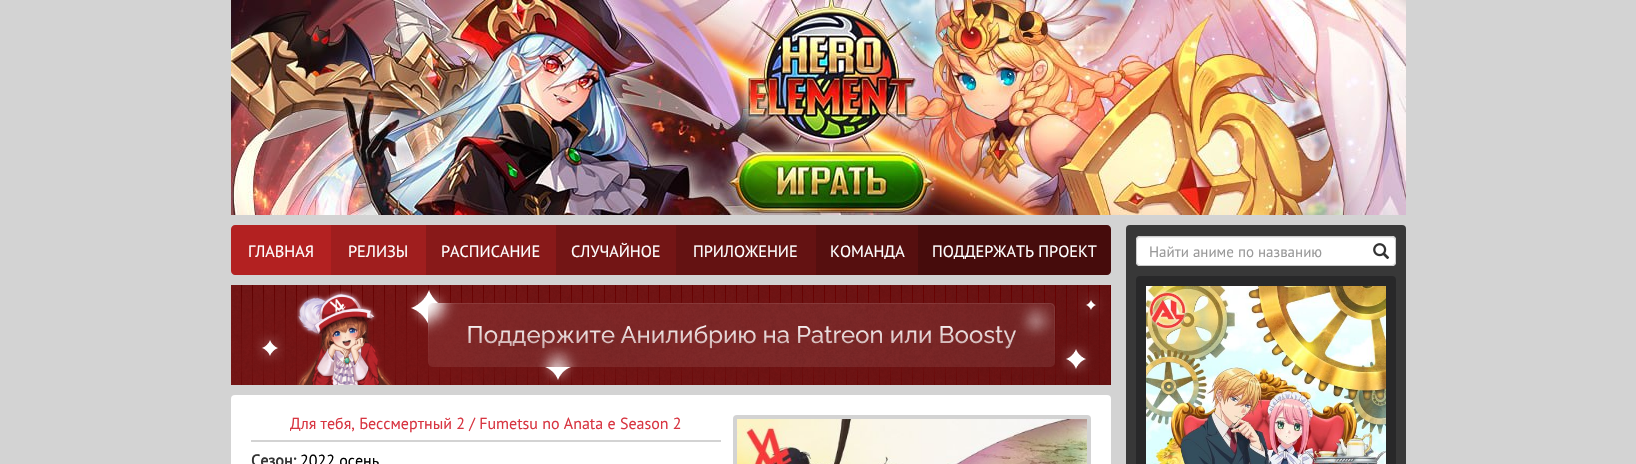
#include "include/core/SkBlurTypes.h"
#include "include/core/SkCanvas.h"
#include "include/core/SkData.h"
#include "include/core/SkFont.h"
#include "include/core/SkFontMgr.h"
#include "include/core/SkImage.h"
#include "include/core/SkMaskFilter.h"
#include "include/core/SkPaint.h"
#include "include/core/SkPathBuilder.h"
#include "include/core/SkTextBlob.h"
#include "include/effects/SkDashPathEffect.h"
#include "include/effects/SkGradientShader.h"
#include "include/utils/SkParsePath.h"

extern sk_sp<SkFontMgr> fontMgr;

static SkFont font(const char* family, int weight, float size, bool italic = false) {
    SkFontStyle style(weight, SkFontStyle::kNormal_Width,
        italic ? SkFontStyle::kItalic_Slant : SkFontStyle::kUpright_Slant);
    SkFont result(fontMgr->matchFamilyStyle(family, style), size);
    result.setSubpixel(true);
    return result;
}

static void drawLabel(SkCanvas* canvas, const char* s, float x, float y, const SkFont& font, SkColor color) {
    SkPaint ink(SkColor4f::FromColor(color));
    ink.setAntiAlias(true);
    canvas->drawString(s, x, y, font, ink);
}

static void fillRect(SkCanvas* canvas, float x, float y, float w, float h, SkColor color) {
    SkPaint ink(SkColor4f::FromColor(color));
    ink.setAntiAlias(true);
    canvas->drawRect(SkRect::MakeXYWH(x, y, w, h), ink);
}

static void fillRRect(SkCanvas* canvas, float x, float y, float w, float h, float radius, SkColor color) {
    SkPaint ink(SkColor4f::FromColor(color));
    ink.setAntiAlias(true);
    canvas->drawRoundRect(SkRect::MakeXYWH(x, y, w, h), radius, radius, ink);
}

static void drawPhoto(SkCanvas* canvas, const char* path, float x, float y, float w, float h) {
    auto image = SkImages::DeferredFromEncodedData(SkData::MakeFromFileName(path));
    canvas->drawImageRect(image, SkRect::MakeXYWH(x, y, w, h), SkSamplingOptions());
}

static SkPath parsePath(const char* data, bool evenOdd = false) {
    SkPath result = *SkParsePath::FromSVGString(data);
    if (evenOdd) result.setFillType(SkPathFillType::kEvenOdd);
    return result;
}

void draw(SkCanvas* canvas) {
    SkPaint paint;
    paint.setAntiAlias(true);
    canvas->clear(0xFFD3D3D3);
    drawPhoto(canvas, "assets/img1.png", 231, 0, 1175, 215);
    paint.setColor(0xFFB32121);
    canvas->drawPath(parsePath("M235 225H331V275H235C233 275 231 273 231 271V229C231 227 233 225 235 225Z"), paint);
    SkFont font1 = font("PT Sans", 400, 16.25f);
    drawLabel(canvas, "ГЛАВНАЯ", 248, 257, font1, 0xFFFFFFFF);
    fillRect(canvas, 331, 225, 95, 50, 0xFFA01E1E);
    drawLabel(canvas, "РЕЛИЗЫ", 348, 257, font1, 0xFFFFFFFF);
    fillRect(canvas, 426, 225, 130, 50, 0xFF881919);
    drawLabel(canvas, "РАСПИСАНИЕ", 441, 257, font1, 0xFFFFFFFF);
    fillRect(canvas, 556, 225, 120, 50, 0xFF731515);
    drawLabel(canvas, "СЛУЧАЙНОЕ", 571, 257, font1, 0xFFFFFFFF);
    fillRect(canvas, 676, 225, 140, 50, 0xFF641212);
    drawLabel(canvas, "ПРИЛОЖЕНИЕ", 693, 257, font1, 0xFFFFFFFF);
    fillRect(canvas, 816, 225, 102, 50, 0xFF560F0F);
    drawLabel(canvas, "КОМАНДА", 830, 257, font1, 0xFFFFFFFF);
    paint.setColor(0xFF460C0C);
    canvas->drawPath(parsePath("M918 225H1107C1109 225 1111 227 1111 229V271C1111 273 1109 275 1107 275H918Z"), paint);
    drawLabel(canvas, "ПОДДЕРЖАТЬ ПРОЕКТ", 932, 257, font1, 0xFFFFFFFF);
    drawPhoto(canvas, "assets/img2.png", 231, 285, 880, 100);
    fillRRect(canvas, 231, 395, 880, 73, 4, 0xFFFFFFFF);
    SkFont font2 = font("PT Sans", 400, 16);
    drawLabel(canvas, "Для тебя, Бессмертный 2 / Fumetsu no Anata e Season 2", 290, 429, font2, 0xFFD83541);
    fillRect(canvas, 251, 440, 470, 2, 0xFFD3D3D3);
    SkFont font3 = font("PT Sans", 700, 16);
    drawLabel(canvas, "Сезон:", 251, 466, font3, 0xFF333333);
    drawLabel(canvas, "2022 осень", 300, 466, font2, 0xFF000000);
    fillRRect(canvas, 733, 415, 358, 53, 4, 0xFFD3D3D3);
    drawPhoto(canvas, "assets/img3.png", 737, 419, 350, 45);
    fillRRect(canvas, 1126, 225, 280, 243, 4, 0xFF383838);
    fillRRect(canvas, 1136, 236, 260, 30, 4, 0xFFFFFFFF);
    paint.setColor(0xFFECECEC);
    canvas->drawPath(parsePath("M1140 238H1393L1395 239V241V240C1395 238 1394 237 1392 237H1140C1138 237 1137 238 1137 240V241C1137 239 1138 238 1140 238Z"), paint);
    paint.setStroke(true);
    paint.setStrokeWidth(1);
    paint.setColor(0xFFCCCCCC);
    canvas->drawRoundRect(SkRect::MakeXYWH(1136.5f, 236.5f, 259, 29), 3.5f, 3.5f, paint);
    SkFont font4 = font("PT Sans", 400, 15);
    drawLabel(canvas, "Найти аниме по названию", 1149, 257, font4, 0xFF999999);
    drawPhoto(canvas, "assets/img4.png", 1373, 243, 17, 17);
    fillRRect(canvas, 1136, 276, 260, 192, 4, 0xFF282829);
    drawPhoto(canvas, "assets/img5.png", 1146, 286, 240, 178);
}
